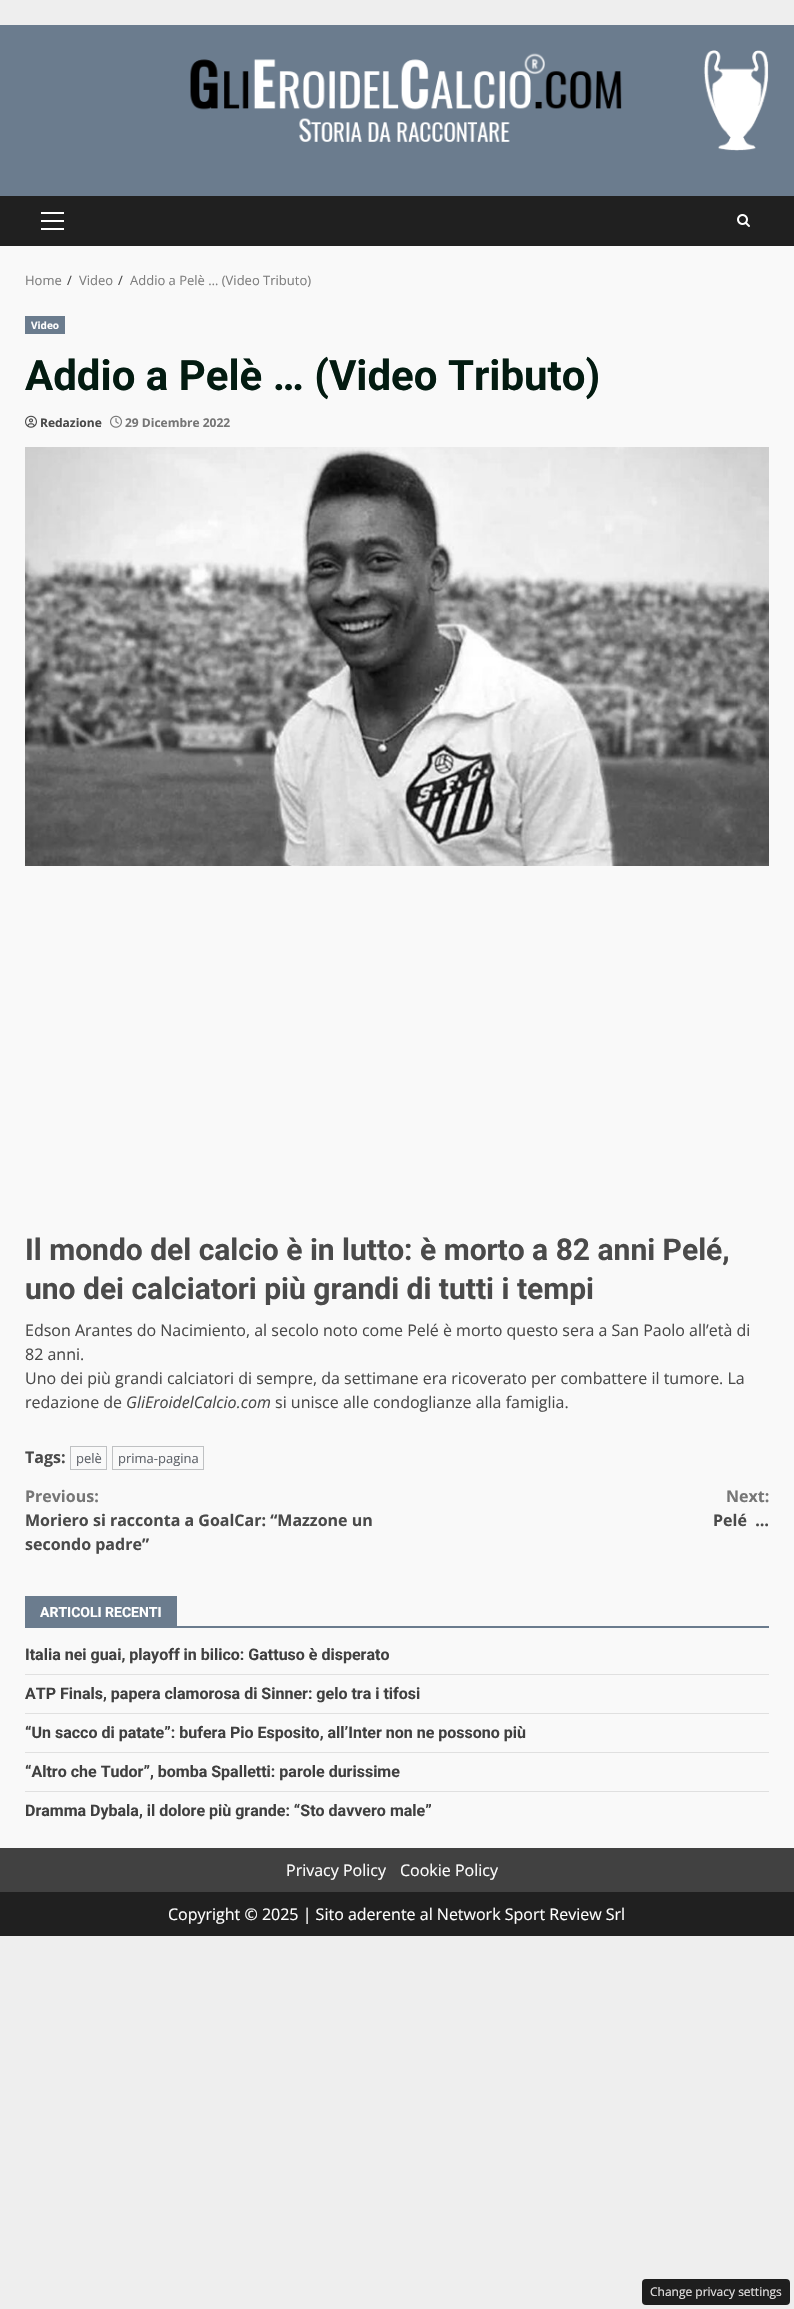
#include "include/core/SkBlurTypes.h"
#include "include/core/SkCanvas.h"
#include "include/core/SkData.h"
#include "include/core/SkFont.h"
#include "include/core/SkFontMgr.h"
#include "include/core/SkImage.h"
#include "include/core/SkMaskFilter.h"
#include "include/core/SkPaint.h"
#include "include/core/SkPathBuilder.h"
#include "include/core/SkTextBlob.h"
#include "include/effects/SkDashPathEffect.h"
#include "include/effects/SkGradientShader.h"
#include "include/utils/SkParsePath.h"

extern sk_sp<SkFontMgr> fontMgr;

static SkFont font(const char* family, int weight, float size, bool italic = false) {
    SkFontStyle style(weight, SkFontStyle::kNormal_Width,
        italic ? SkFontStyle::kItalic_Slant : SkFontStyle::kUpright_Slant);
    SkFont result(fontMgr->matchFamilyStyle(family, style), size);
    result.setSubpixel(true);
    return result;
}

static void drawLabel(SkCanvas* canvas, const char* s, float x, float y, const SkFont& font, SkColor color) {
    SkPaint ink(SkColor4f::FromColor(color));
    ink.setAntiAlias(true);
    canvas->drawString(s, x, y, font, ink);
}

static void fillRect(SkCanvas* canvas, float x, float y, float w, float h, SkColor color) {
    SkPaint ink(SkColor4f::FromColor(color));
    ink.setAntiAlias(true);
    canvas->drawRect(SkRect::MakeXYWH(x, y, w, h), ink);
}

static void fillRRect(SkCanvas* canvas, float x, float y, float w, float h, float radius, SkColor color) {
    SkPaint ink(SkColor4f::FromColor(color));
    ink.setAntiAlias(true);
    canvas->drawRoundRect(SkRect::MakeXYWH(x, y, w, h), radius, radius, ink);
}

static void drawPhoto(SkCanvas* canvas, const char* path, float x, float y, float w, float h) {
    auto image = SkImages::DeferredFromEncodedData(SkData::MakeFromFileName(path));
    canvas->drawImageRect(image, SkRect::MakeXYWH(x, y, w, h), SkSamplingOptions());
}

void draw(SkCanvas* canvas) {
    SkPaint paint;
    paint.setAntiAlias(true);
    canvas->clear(0xFFEEEEEE);
    fillRect(canvas, 0, 246, 794, 1602, 0xFFF9F9F9);
    fillRect(canvas, 0, 25, 794, 171, 0xFF6B7C8E);
    drawPhoto(canvas, "assets/img1.png", 190, 50, 579, 101);
    fillRect(canvas, 0, 196, 794, 50, 0xFF202020);
    fillRect(canvas, 41, 220, 23, 2, 0xFFFFFFFF);
    fillRect(canvas, 41, 212, 23, 2, 0xFFFFFFFF);
    fillRect(canvas, 41, 228, 23, 2, 0xFFFFFFFF);
    drawPhoto(canvas, "assets/img2.png", 737, 214, 13, 13);
    SkFont font1 = font("Open Sans", 400, 13);
    drawLabel(canvas, "Home", 25, 285, font1, 0xFF7F7F7F);
    drawLabel(canvas, "/", 67, 285, font1, 0xFF4A4A4A);
    drawLabel(canvas, "Video", 79, 285, font1, 0xFF7F7F7F);
    drawLabel(canvas, "/", 118, 285, font1, 0xFF4A4A4A);
    drawLabel(canvas, "Addio a Pelè … (Video Tributo)", 130, 285, font1, 0xFF7F7F7F);
    fillRect(canvas, 25, 316, 40, 18, 0xFF6B7C8E);
    SkFont font2 = font("Open Sans", 700, 10);
    drawLabel(canvas, "Video", 31, 329, font2, 0xFFFFFFFF);
    SkFont font3 = font("Roboto", 700, 42);
    drawLabel(canvas, "Addio a Pelè … (Video Tributo)", 25, 390, font3, 0xFF031B11);
    drawPhoto(canvas, "assets/img3.png", 25, 415, 12, 13);
    SkFont font4 = font("Open Sans", 700, 12);
    drawLabel(canvas, "Redazione", 40, 427, font4, 0xFF4A4A4A);
    drawPhoto(canvas, "assets/img4.png", 110, 415, 12, 13);
    drawLabel(canvas, "29 Dicembre 2022", 125, 427, font4, 0xFF767676);
    drawPhoto(canvas, "assets/img5.png", 25, 447, 744, 419);
    SkFont font5 = font("Roboto", 700, 30);
    drawLabel(canvas, "Il mondo del calcio è in lutto: è morto a 82 anni Pelé,", 25, 1260, font5, 0xFF4A4A4A);
    drawLabel(canvas, "uno dei calciatori più grandi di tutti i tempi", 25, 1299, font5, 0xFF4A4A4A);
    SkFont font6 = font("Open Sans", 400, 16);
    drawLabel(canvas, "Edson Arantes do Nacimiento, al secolo noto come Pelé è morto questo sera a San Paolo all’età di", 25, 1336, font6, 0xFF4A4A4A);
    drawLabel(canvas, "82 anni.", 25, 1360, font6, 0xFF4A4A4A);
    drawLabel(canvas, "Uno dei più grandi calciatori di sempre, da settimane era ricoverato per combattere il tumore. La", 25, 1384, font6, 0xFF4A4A4A);
    drawLabel(canvas, "redazione de", 25, 1408, font6, 0xFF4A4A4A);
    SkFont font7 = font("Open Sans", 400, 16, true);
    drawLabel(canvas, "GliEroidelCalcio.com", 126, 1408, font7, 0xFF4A4A4A);
    drawLabel(canvas, "si unisce alle condoglianze alla famiglia.", 275, 1408, font6, 0xFF4A4A4A);
    SkFont font8 = font("Open Sans", 700, 16);
    drawLabel(canvas, "Tags:", 25, 1463, font8, 0xFF4A4A4A);
    paint.setStroke(true);
    paint.setStrokeWidth(1);
    paint.setColor(0xFFBFC1C3);
    canvas->drawRect(SkRect::MakeXYWH(70.5f, 1446.5f, 36, 23), paint);
    drawLabel(canvas, "pelè", 76, 1463, font1, 0xFF5F636A);
    canvas->drawRect(SkRect::MakeXYWH(112.5f, 1446.5f, 91, 23), paint);
    drawLabel(canvas, "prima-pagina", 118, 1463, font1, 0xFF5F636A);
    drawLabel(canvas, "Previous:", 25, 1502, font8, 0xFF767676);
    drawLabel(canvas, "Moriero si racconta a GoalCar: “Mazzone un", 25, 1526, font8, 0xFF4A4A4A);
    drawLabel(canvas, "secondo padre”", 25, 1550, font8, 0xFF4A4A4A);
    drawLabel(canvas, "Next:", 726, 1502, font8, 0xFF767676);
    drawLabel(canvas, "Pelé  …", 713, 1526, font8, 0xFF4A4A4A);
    fillRect(canvas, 25, 1626, 744, 2, 0xFF6B7C8E);
    fillRect(canvas, 25, 1596, 152, 30, 0xFF6B7C8E);
    SkFont font9 = font("Roboto", 700, 14);
    drawLabel(canvas, "ARTICOLI RECENTI", 40, 1617, font9, 0xFFFFFFFF);
    fillRect(canvas, 25, 1674, 744, 1, 0xFFE0E0E0);
    SkFont font10 = font("Roboto", 700, 16);
    drawLabel(canvas, "Italia nei guai, playoff in bilico: Gattuso è disperato", 25, 1660, font10, 0xFF404040);
    fillRect(canvas, 25, 1713, 744, 1, 0xFFE0E0E0);
    drawLabel(canvas, "ATP Finals, papera clamorosa di Sinner: gelo tra i tifosi", 25, 1699, font10, 0xFF404040);
    fillRect(canvas, 25, 1752, 744, 1, 0xFFE0E0E0);
    drawLabel(canvas, "“Un sacco di patate”: bufera Pio Esposito, all’Inter non ne possono più", 25, 1738, font10, 0xFF404040);
    fillRect(canvas, 25, 1791, 744, 1, 0xFFE0E0E0);
    drawLabel(canvas, "“Altro che Tudor”, bomba Spalletti: parole durissime", 25, 1777, font10, 0xFF404040);
    drawLabel(canvas, "Dramma Dybala, il dolore più grande: “Sto davvero male”", 25, 1816, font10, 0xFF404040);
    fillRect(canvas, 0, 1892, 794, 44, 0xFF202020);
    fillRect(canvas, 0, 1848, 794, 44, 0xFF414141);
    drawLabel(canvas, "Privacy Policy", 286, 1876, font6, 0xFFFFFFFF);
    drawLabel(canvas, "Cookie Policy", 400, 1876, font6, 0xFFFFFFFF);
    drawLabel(canvas, "Copyright © 2025 | Sito aderente al Network Sport Review Srl", 168, 1920, font6, 0xFFFFFFFF);
    fillRRect(canvas, 642, 2279, 148, 26, 4, 0xFF1E1E1E);
    SkFont font11 = font("Open Sans", 400, 12);
    drawLabel(canvas, "Change privacy settings", 650, 2296, font11, 0xFFE3E1E1);
}
